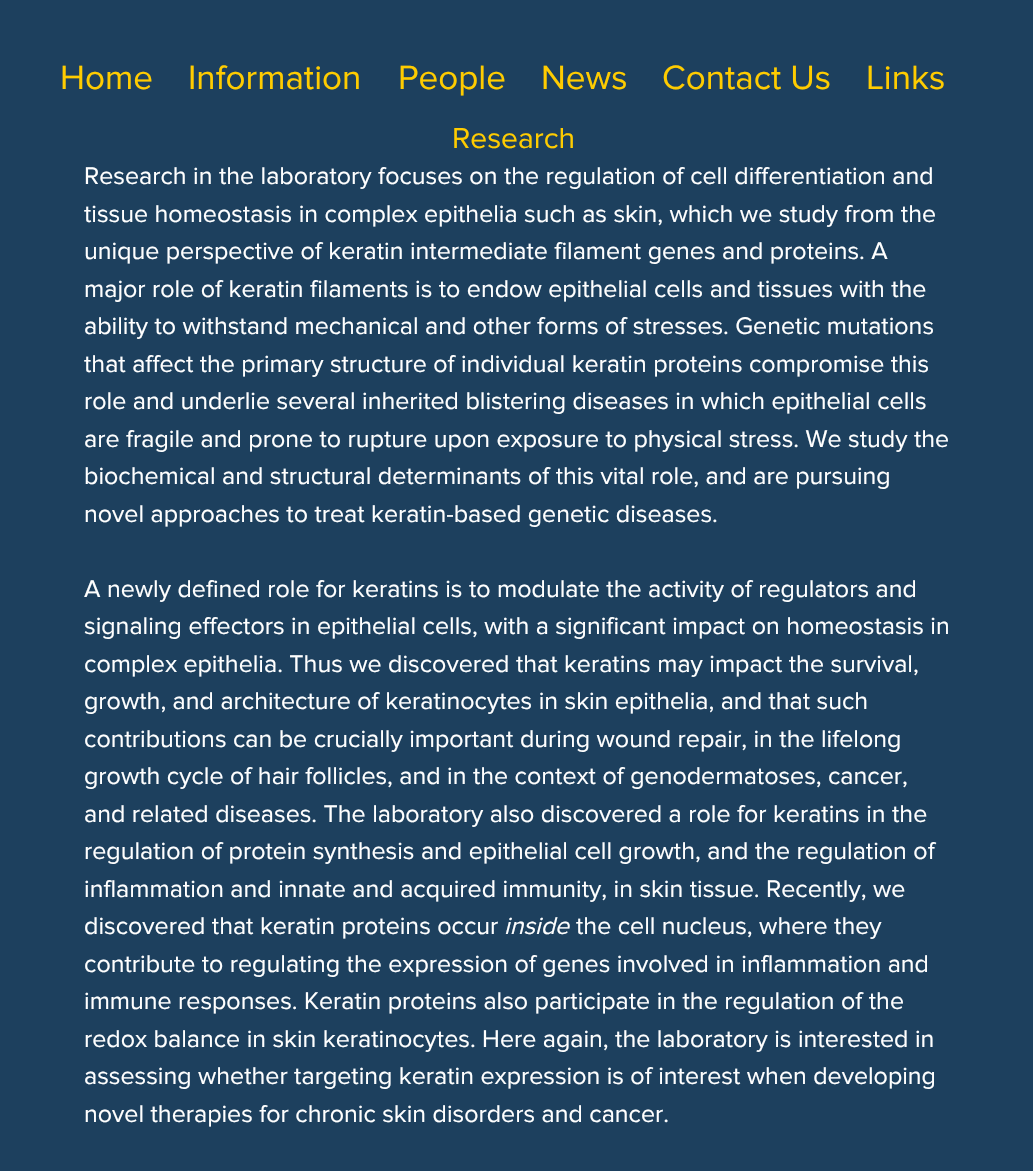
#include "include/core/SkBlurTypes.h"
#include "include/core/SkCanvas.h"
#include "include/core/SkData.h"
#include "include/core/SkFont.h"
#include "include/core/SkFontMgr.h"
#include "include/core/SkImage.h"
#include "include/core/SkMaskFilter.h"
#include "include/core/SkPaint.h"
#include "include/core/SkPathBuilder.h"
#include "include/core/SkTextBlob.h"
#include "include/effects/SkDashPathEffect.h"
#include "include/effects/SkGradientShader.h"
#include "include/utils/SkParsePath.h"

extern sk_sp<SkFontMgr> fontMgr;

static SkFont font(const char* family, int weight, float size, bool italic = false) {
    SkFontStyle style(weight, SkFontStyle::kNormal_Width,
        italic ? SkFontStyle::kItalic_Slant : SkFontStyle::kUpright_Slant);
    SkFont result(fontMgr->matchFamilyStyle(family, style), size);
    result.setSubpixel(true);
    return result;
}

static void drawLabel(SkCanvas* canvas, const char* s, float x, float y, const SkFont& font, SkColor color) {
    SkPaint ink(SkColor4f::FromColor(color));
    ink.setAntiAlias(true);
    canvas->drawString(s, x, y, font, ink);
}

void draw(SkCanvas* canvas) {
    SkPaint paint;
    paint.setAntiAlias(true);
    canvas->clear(0xFF1D405E);
    SkFont font1 = font("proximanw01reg", 400, 35);
    drawLabel(canvas, "Home", 60, 89, font1, 0xFFFFCC00);
    drawLabel(canvas, "Information", 188, 89, font1, 0xFFFFCC00);
    drawLabel(canvas, "People", 398, 89, font1, 0xFFFFCC00);
    drawLabel(canvas, "News", 541, 89, font1, 0xFFFFCC00);
    drawLabel(canvas, "Contact Us", 662, 89, font1, 0xFFFFCC00);
    drawLabel(canvas, "Links", 866, 89, font1, 0xFFFFCC00);
    SkFont font2 = font("proximanw01reg", 400, 30);
    drawLabel(canvas, "Research", 452, 148, font2, 0xFFFFCC00);
    SkFont font3 = font("proximanw01reg", 400, 25);
    drawLabel(canvas, "Research in the laboratory focuses on the regulation of cell differentiation and", 84, 184, font3, 0xFFFFFFFF);
    drawLabel(canvas, "tissue homeostasis in complex epithelia such as skin, which we study from the", 84, 222, font3, 0xFFFFFFFF);
    drawLabel(canvas, "unique perspective of keratin intermediate filament genes and proteins. A", 84, 259, font3, 0xFFFFFFFF);
    drawLabel(canvas, "major role of keratin filaments is to endow epithelial cells and tissues with the", 84, 297, font3, 0xFFFFFFFF);
    drawLabel(canvas, "ability to withstand mechanical and other forms of stresses. Genetic mutations", 84, 334, font3, 0xFFFFFFFF);
    drawLabel(canvas, "that affect the primary structure of individual keratin proteins compromise this", 84, 372, font3, 0xFFFFFFFF);
    drawLabel(canvas, "role and underlie several inherited blistering diseases in which epithelial cells", 84, 409, font3, 0xFFFFFFFF);
    drawLabel(canvas, "are fragile and prone to rupture upon exposure to physical stress. We study the", 84, 447, font3, 0xFFFFFFFF);
    drawLabel(canvas, "biochemical and structural determinants of this vital role, and are pursuing", 84, 484, font3, 0xFFFFFFFF);
    drawLabel(canvas, "novel approaches to treat keratin-based genetic diseases.", 84, 522, font3, 0xFFFFFFFF);
    drawLabel(canvas, "A newly defined role for keratins is to modulate the activity of regulators and", 84, 597, font3, 0xFFFFFFFF);
    drawLabel(canvas, "signaling effectors in epithelial cells, with a significant impact on homeostasis in", 84, 634, font3, 0xFFFFFFFF);
    drawLabel(canvas, "complex epithelia. Thus we discovered that keratins may impact the survival,", 84, 672, font3, 0xFFFFFFFF);
    drawLabel(canvas, "growth, and architecture of keratinocytes in skin epithelia, and that such", 84, 709, font3, 0xFFFFFFFF);
    drawLabel(canvas, "contributions can be crucially important during wound repair, in the lifelong", 84, 747, font3, 0xFFFFFFFF);
    drawLabel(canvas, "growth cycle of hair follicles, and in the context of genodermatoses, cancer,", 84, 784, font3, 0xFFFFFFFF);
    drawLabel(canvas, "and related diseases. The laboratory also discovered a role for keratins in the", 84, 822, font3, 0xFFFFFFFF);
    drawLabel(canvas, "regulation of protein synthesis and epithelial cell growth, and the regulation of", 84, 859, font3, 0xFFFFFFFF);
    drawLabel(canvas, "inflammation and innate and acquired immunity, in skin tissue. Recently, we", 84, 897, font3, 0xFFFFFFFF);
    drawLabel(canvas, "discovered that keratin proteins occur", 84, 934, font3, 0xFFFFFFFF);
    SkFont font4 = font("proximanw01reg", 400, 25, true);
    drawLabel(canvas, "inside", 504, 934, font4, 0xFFFFFFFF);
    drawLabel(canvas, "the cell nucleus, where they", 576, 934, font3, 0xFFFFFFFF);
    drawLabel(canvas, "contribute to regulating the expression of genes involved in inflammation and", 84, 972, font3, 0xFFFFFFFF);
    drawLabel(canvas, "immune responses. Keratin proteins also participate in the regulation of the", 84, 1009, font3, 0xFFFFFFFF);
    drawLabel(canvas, "redox balance in skin keratinocytes. Here again, the laboratory is interested in", 84, 1047, font3, 0xFFFFFFFF);
    drawLabel(canvas, "assessing whether targeting keratin expression is of interest when developing", 84, 1084, font3, 0xFFFFFFFF);
    drawLabel(canvas, "novel therapies for chronic skin disorders and cancer.", 84, 1122, font3, 0xFFFFFFFF);
}
